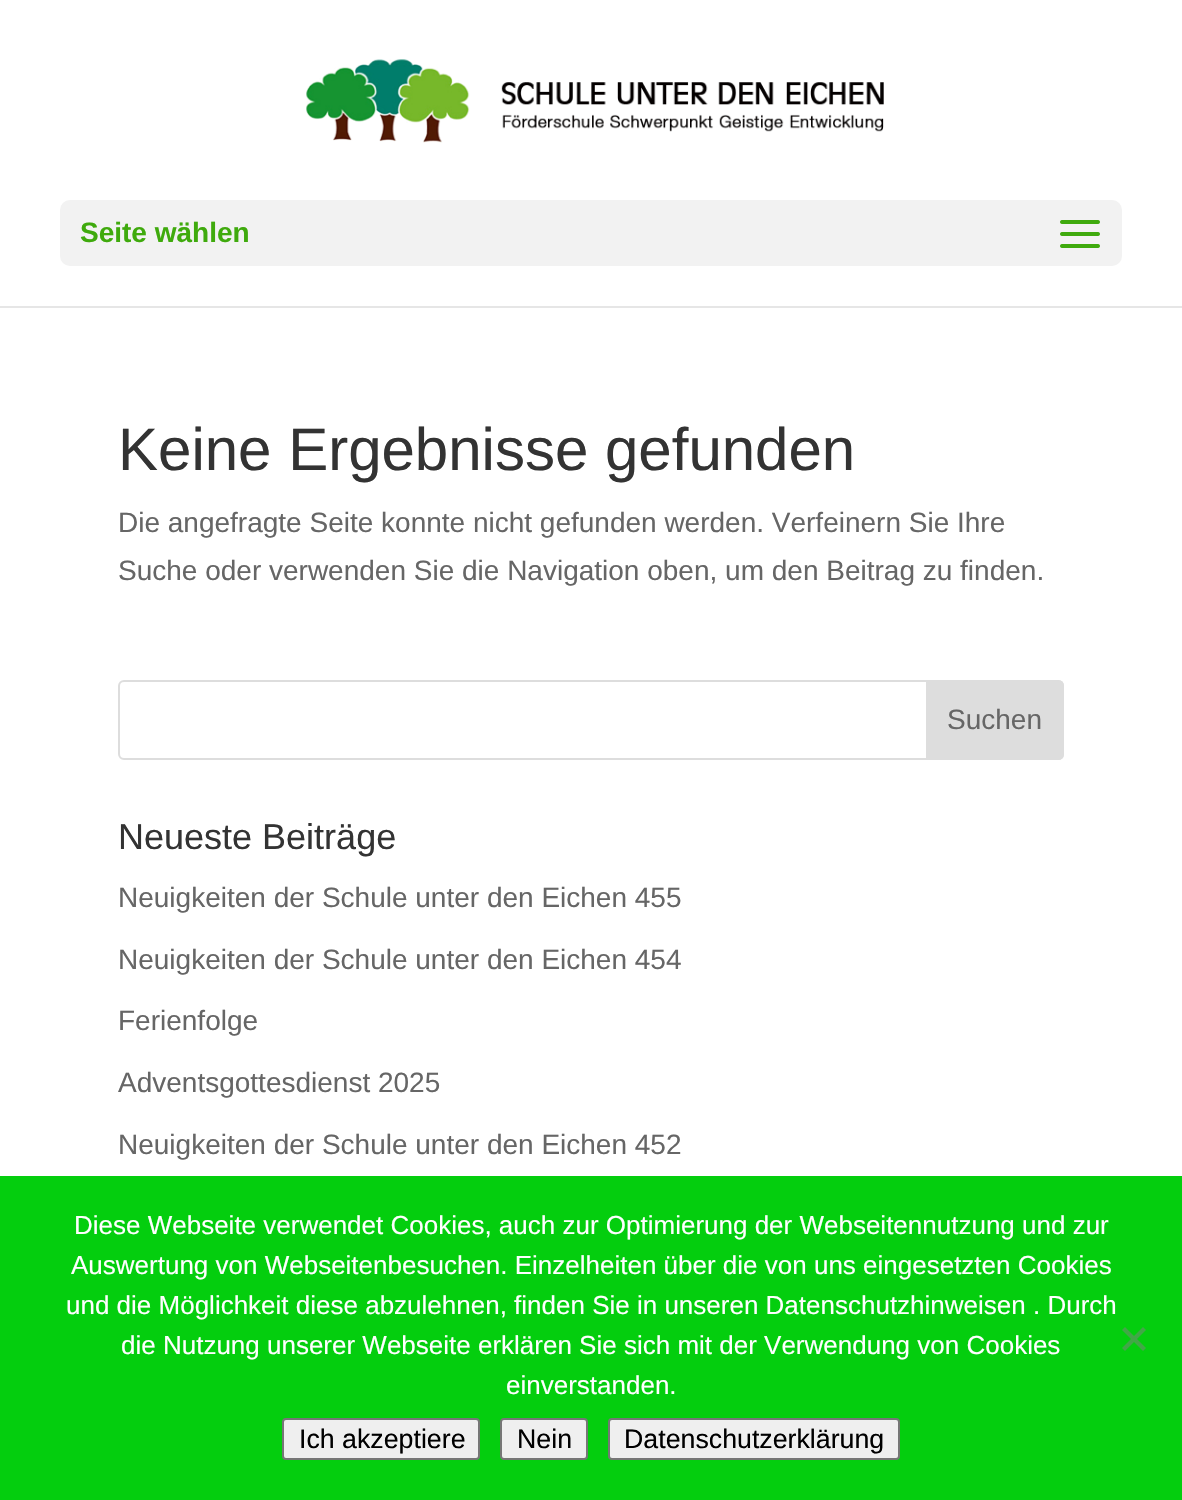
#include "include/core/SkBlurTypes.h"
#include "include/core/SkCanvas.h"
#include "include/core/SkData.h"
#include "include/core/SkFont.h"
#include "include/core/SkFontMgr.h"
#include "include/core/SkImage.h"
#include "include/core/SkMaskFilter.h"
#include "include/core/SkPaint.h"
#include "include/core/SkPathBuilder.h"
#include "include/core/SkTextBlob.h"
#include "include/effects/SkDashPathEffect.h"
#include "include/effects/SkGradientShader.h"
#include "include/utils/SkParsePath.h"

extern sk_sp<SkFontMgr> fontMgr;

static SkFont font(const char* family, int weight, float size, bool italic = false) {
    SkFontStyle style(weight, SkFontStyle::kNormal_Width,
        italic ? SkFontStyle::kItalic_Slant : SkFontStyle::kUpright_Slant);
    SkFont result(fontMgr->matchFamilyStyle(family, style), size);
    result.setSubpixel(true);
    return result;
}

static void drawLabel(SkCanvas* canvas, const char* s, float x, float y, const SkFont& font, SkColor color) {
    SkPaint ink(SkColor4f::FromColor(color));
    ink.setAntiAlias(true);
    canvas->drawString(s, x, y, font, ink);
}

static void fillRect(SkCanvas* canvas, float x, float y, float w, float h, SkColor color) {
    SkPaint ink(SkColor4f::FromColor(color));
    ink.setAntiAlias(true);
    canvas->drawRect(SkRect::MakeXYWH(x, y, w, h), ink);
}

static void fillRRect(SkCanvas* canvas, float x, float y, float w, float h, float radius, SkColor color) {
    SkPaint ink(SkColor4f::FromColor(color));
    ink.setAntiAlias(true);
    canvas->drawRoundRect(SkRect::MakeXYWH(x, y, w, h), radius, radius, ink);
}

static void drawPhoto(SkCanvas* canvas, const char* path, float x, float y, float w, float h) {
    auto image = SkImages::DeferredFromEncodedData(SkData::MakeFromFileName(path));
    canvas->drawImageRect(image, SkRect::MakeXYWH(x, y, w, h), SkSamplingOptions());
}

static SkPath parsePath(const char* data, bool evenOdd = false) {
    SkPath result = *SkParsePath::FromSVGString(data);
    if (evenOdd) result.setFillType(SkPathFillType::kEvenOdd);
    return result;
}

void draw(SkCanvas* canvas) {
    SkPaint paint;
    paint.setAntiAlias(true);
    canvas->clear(0xFFFFFFFF);
    fillRect(canvas, 0, 306, 1182, 2, 0xFFE6E6E6);
    drawPhoto(canvas, "assets/img1.png", 306, 59, 578, 84);
    fillRRect(canvas, 60, 200, 1062, 66, 10, 0xFFF2F2F2);
    SkFont font1 = font("Liberation Sans", 700, 28);
    drawLabel(canvas, "Seite wählen", 80, 242, font1, 0xFF3FAA0D);
    drawPhoto(canvas, "assets/img2.png", 1060, 220, 40, 28);
    SkFont font2 = font("Liberation Sans", 400, 60);
    drawLabel(canvas, "Keine Ergebnisse gefunden", 118, 470, font2, 0xFF333333);
    SkFont font3 = font("Liberation Sans", 400, 28);
    drawLabel(canvas, "Die angefragte Seite konnte nicht gefunden werden. Verfeinern Sie Ihre", 118, 532, font3, 0xFF666666);
    drawLabel(canvas, "Suche oder verwenden Sie die Navigation oben, um den Beitrag zu finden.", 118, 580, font3, 0xFF666666);
    paint.setStroke(true);
    paint.setStrokeWidth(2);
    paint.setColor(0xFFDDDDDD);
    canvas->drawRoundRect(SkRect::MakeXYWH(119, 681, 944, 78), 5, 5, paint);
    paint.setStroke(false);
    canvas->drawPath(parsePath("M927 681H1058C1061 681 1063 683 1063 686V754C1063 757 1061 759 1058 759H927Z"), paint);
    paint.setStroke(true);
    canvas->drawPath(parsePath("M927 681H1058C1061 681 1063 683 1063 686V754C1063 757 1061 759 1058 759H927Z"), paint);
    drawLabel(canvas, "Suchen", 947, 729, font3, 0xFF666666);
    SkFont font4 = font("Liberation Sans", 400, 36);
    drawLabel(canvas, "Neueste Beiträge", 118, 849, font4, 0xFF333333);
    drawLabel(canvas, "Neuigkeiten der Schule unter den Eichen 455", 118, 907, font3, 0xFF666666);
    drawLabel(canvas, "Neuigkeiten der Schule unter den Eichen 454", 118, 969, font3, 0xFF666666);
    drawLabel(canvas, "Ferienfolge", 118, 1030, font3, 0xFF666666);
    drawLabel(canvas, "Adventsgottesdienst 2025", 118, 1092, font3, 0xFF666666);
    drawLabel(canvas, "Neuigkeiten der Schule unter den Eichen 452", 118, 1154, font3, 0xFF666666);
    fillRect(canvas, 0, 1176, 1182, 324, 0xFF04CE0E);
    SkFont font5 = font("Liberation Sans", 400, 26);
    drawLabel(canvas, "Diese Webseite verwendet Cookies, auch zur Optimierung der Webseitennutzung und zur", 74, 1234, font5, 0xFFFFFFFF);
    drawLabel(canvas, "Auswertung von Webseitenbesuchen. Einzelheiten über die von uns eingesetzten Cookies", 71, 1274, font5, 0xFFFFFFFF);
    drawLabel(canvas, "und die Möglichkeit diese abzulehnen, finden Sie in unseren Datenschutzhinweisen . Durch", 66, 1314, font5, 0xFFFFFFFF);
    drawLabel(canvas, "die Nutzung unserer Webseite erklären Sie sich mit der Verwendung von Cookies", 121, 1354, font5, 0xFFFFFFFF);
    drawLabel(canvas, "einverstanden.", 506, 1394, font5, 0xFFFFFFFF);
    paint.setStroke(false);
    paint.setColor(0xFF42A747);
    canvas->drawPath(parsePath("M1143 1327L1146 1330L1125 1351L1122 1348Z"), paint);
    canvas->drawPath(parsePath("M1122 1330L1125 1327L1146 1348L1143 1351Z"), paint);
    paint.setColor(0xFFEFEFEF);
    canvas->drawRoundRect(SkRect::MakeXYWH(283, 1419, 196, 40), 3, 3, paint);
    paint.setStroke(true);
    paint.setColor(0xFF767676);
    canvas->drawRoundRect(SkRect::MakeXYWH(283, 1419, 196, 40), 3, 3, paint);
    SkFont font6 = font("Liberation Sans", 400, 26.75f);
    drawLabel(canvas, "Ich akzeptiere", 299, 1448, font6, 0xFF000000);
    paint.setStroke(false);
    paint.setColor(0xFFEFEFEF);
    canvas->drawRoundRect(SkRect::MakeXYWH(501, 1419, 86, 40), 3, 3, paint);
    paint.setStroke(true);
    paint.setColor(0xFF767676);
    canvas->drawRoundRect(SkRect::MakeXYWH(501, 1419, 86, 40), 3, 3, paint);
    drawLabel(canvas, "Nein", 517, 1448, font6, 0xFF000000);
    paint.setStroke(false);
    paint.setColor(0xFFEFEFEF);
    canvas->drawRoundRect(SkRect::MakeXYWH(609, 1419, 290, 40), 3, 3, paint);
    paint.setStroke(true);
    paint.setColor(0xFF767676);
    canvas->drawRoundRect(SkRect::MakeXYWH(609, 1419, 290, 40), 3, 3, paint);
    drawLabel(canvas, "Datenschutzerklärung", 624, 1448, font6, 0xFF000000);
}
